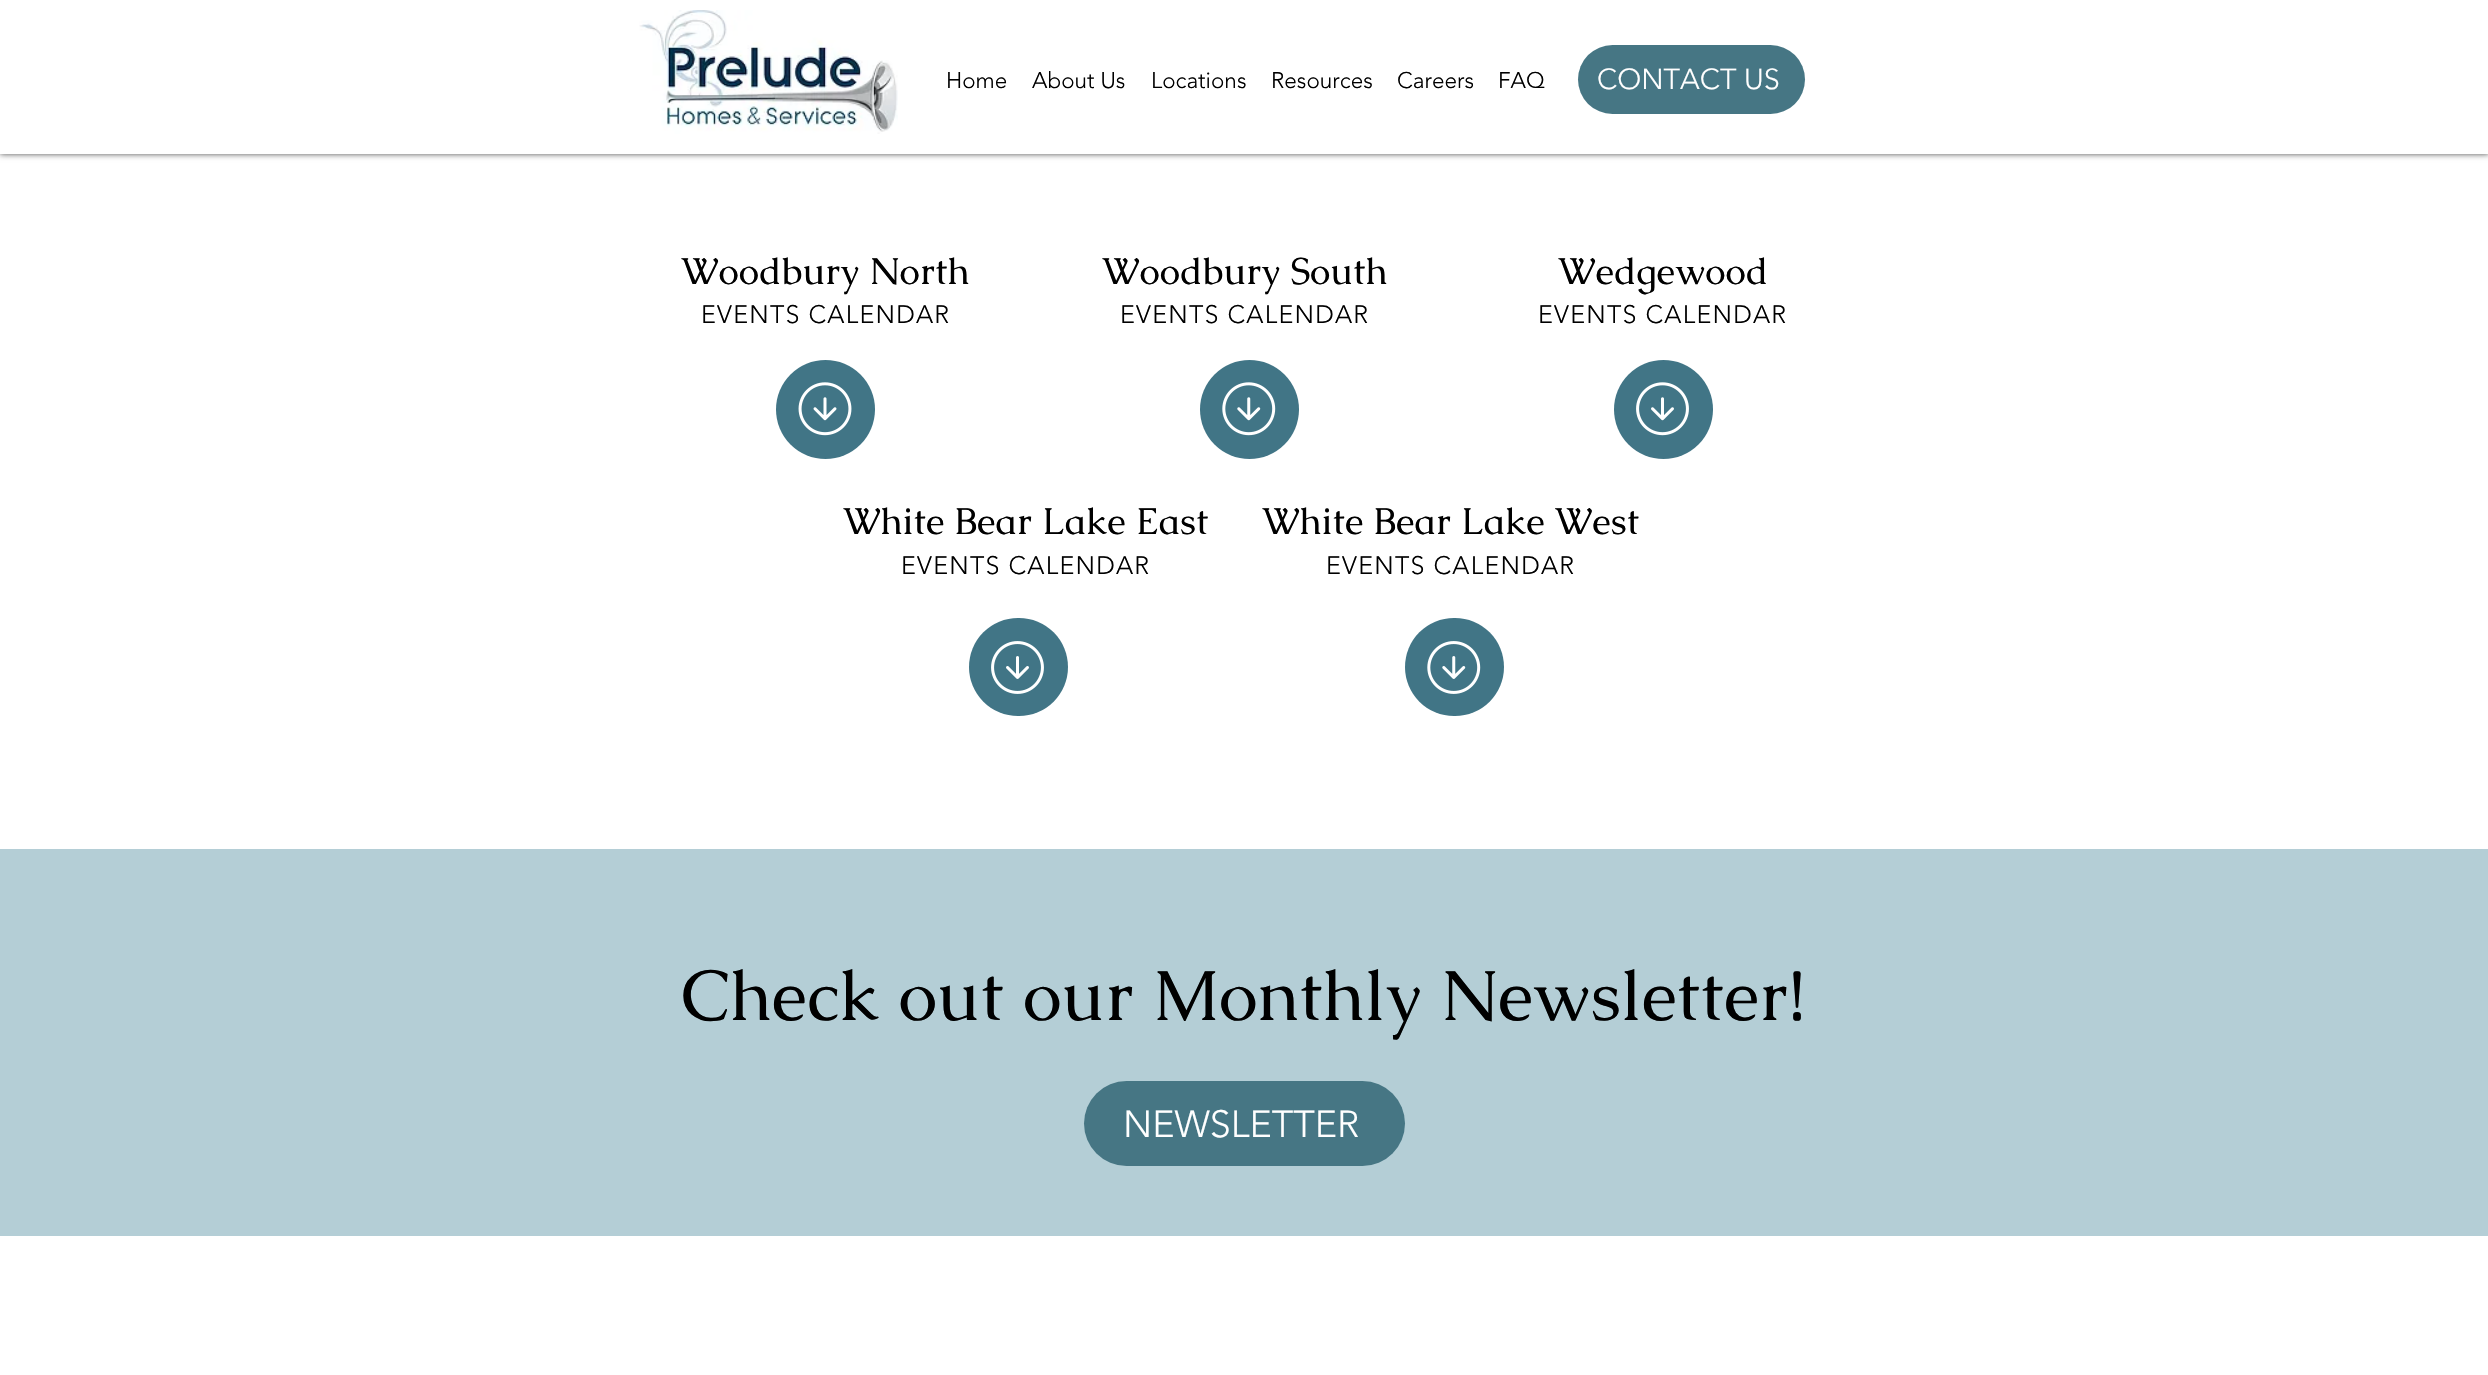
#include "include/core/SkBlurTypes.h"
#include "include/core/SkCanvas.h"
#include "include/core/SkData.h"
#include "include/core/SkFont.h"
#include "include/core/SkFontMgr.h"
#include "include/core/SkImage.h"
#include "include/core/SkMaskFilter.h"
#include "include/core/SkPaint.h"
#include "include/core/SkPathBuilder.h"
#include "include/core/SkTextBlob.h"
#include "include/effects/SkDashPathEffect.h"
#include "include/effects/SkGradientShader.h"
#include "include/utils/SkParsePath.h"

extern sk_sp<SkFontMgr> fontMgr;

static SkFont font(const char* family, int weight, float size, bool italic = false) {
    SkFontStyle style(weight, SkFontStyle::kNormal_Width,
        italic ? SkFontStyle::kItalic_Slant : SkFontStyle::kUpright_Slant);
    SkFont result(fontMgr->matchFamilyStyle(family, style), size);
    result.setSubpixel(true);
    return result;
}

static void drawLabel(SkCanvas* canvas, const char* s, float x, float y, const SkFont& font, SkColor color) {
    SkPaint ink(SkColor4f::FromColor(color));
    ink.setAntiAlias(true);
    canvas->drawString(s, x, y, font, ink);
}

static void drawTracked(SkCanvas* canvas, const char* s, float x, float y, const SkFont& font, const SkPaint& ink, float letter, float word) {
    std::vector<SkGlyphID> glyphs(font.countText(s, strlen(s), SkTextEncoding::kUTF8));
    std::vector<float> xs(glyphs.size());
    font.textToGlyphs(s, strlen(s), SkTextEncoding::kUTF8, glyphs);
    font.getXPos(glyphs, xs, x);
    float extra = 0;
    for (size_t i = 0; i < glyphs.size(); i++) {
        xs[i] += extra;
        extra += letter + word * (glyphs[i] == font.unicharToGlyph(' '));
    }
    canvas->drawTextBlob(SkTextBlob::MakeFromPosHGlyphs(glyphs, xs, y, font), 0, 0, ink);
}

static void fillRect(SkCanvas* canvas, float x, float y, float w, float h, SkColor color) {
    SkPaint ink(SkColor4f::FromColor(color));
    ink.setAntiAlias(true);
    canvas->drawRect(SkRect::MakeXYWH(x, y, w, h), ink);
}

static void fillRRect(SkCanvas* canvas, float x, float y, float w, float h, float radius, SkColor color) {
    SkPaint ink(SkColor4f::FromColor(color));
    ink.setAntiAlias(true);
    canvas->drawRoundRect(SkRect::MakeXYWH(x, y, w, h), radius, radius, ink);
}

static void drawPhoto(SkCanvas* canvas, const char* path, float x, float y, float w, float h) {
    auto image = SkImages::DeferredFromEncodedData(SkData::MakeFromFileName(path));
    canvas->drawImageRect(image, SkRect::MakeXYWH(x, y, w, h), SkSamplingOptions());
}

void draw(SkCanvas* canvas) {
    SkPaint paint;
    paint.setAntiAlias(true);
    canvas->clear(0xFFFFFFFF);
    paint.setColor(0xB3000000);
    paint.setMaskFilter(SkMaskFilter::MakeBlur(kNormal_SkBlurStyle, 3));
    canvas->drawRect(SkRect::MakeXYWH(0, 0, 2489, 154), paint);
    paint.setMaskFilter(nullptr);
    fillRect(canvas, 0, 0, 2488, 154, 0xFFFFFFFF);
    drawPhoto(canvas, "assets/img1.png", 639, 10, 259, 124);
    SkFont font1 = font("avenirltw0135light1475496", 300, 22.5f);
    drawLabel(canvas, "Home", 946, 88, font1, 0xFF000000);
    drawLabel(canvas, "About Us", 1032, 88, font1, 0xFF000000);
    drawLabel(canvas, "Locations", 1151, 88, font1, 0xFF000000);
    drawLabel(canvas, "Resources", 1271, 88, font1, 0xFF000000);
    drawLabel(canvas, "Careers", 1397, 88, font1, 0xFF000000);
    drawLabel(canvas, "FAQ", 1498, 88, font1, 0xFF000000);
    fillRRect(canvas, 1578, 45, 227, 69, 34.5f, 0xFF467684);
    SkFont font2 = font("avenirltw0135light1475496", 300, 28.75f);
    drawLabel(canvas, "CONTACT US", 1597, 89, font2, 0xFFFFFFFF);
    SkFont font3 = font("Caudex", 400, 37.5f);
    drawLabel(canvas, "Woodbury North", 681, 284, font3, 0xFF000000);
    SkFont font4 = font("avenirltw0135light1475496", 300, 25);
    paint.setColor(0xFF000000);
    drawTracked(canvas, "EVENTS CALENDAR", 701, 323, font4, paint, 1.25f, 0);
    drawLabel(canvas, "Woodbury South", 1102, 284, font3, 0xFF000000);
    drawTracked(canvas, "EVENTS CALENDAR", 1120, 323, font4, paint, 1.25f, 0);
    drawLabel(canvas, "Wedgewood", 1558, 284, font3, 0xFF000000);
    drawTracked(canvas, "EVENTS CALENDAR", 1538, 323, font4, paint, 1.25f, 0);
    paint.setColor(0xFF417586);
    canvas->drawCircle(825.5f, 409.5f, 49.5f, paint);
    drawPhoto(canvas, "assets/img2.png", 798, 382, 54, 54);
    canvas->drawCircle(1249.5f, 409.5f, 49.5f, paint);
    drawPhoto(canvas, "assets/img3.png", 1222, 382, 54, 54);
    canvas->drawCircle(1663.5f, 409.5f, 49.5f, paint);
    drawPhoto(canvas, "assets/img4.png", 1636, 382, 53, 54);
    drawLabel(canvas, "White Bear Lake East", 843, 534, font3, 0xFF000000);
    paint.setColor(0xFF000000);
    drawTracked(canvas, "EVENTS CALENDAR", 901, 574, font4, paint, 1.25f, 0);
    drawLabel(canvas, "White Bear Lake West", 1262, 534, font3, 0xFF000000);
    drawTracked(canvas, "EVENTS CALENDAR", 1326, 574, font4, paint, 1.25f, 0);
    fillRRect(canvas, 969, 618, 99, 98, 49, 0xFF417586);
    drawPhoto(canvas, "assets/img5.png", 991, 641, 53, 53);
    fillRRect(canvas, 1405, 618, 99, 98, 49, 0xFF417586);
    drawPhoto(canvas, "assets/img6.png", 1427, 641, 54, 53);
    fillRect(canvas, 0, 849, 2488, 387, 0xFFB4CED6);
    SkFont font5 = font("Caudex", 400, 71.25f);
    drawLabel(canvas, "Check out our Monthly Newsletter!", 681, 1020, font5, 0xFF000000);
    fillRRect(canvas, 1084, 1081, 321, 85, 42.5f, 0xFF467684);
    SkFont font6 = font("avenirltw0135light1475496", 300, 37.5f);
    drawLabel(canvas, "NEWSLETTER", 1123, 1137, font6, 0xFFFFFFFF);
}
